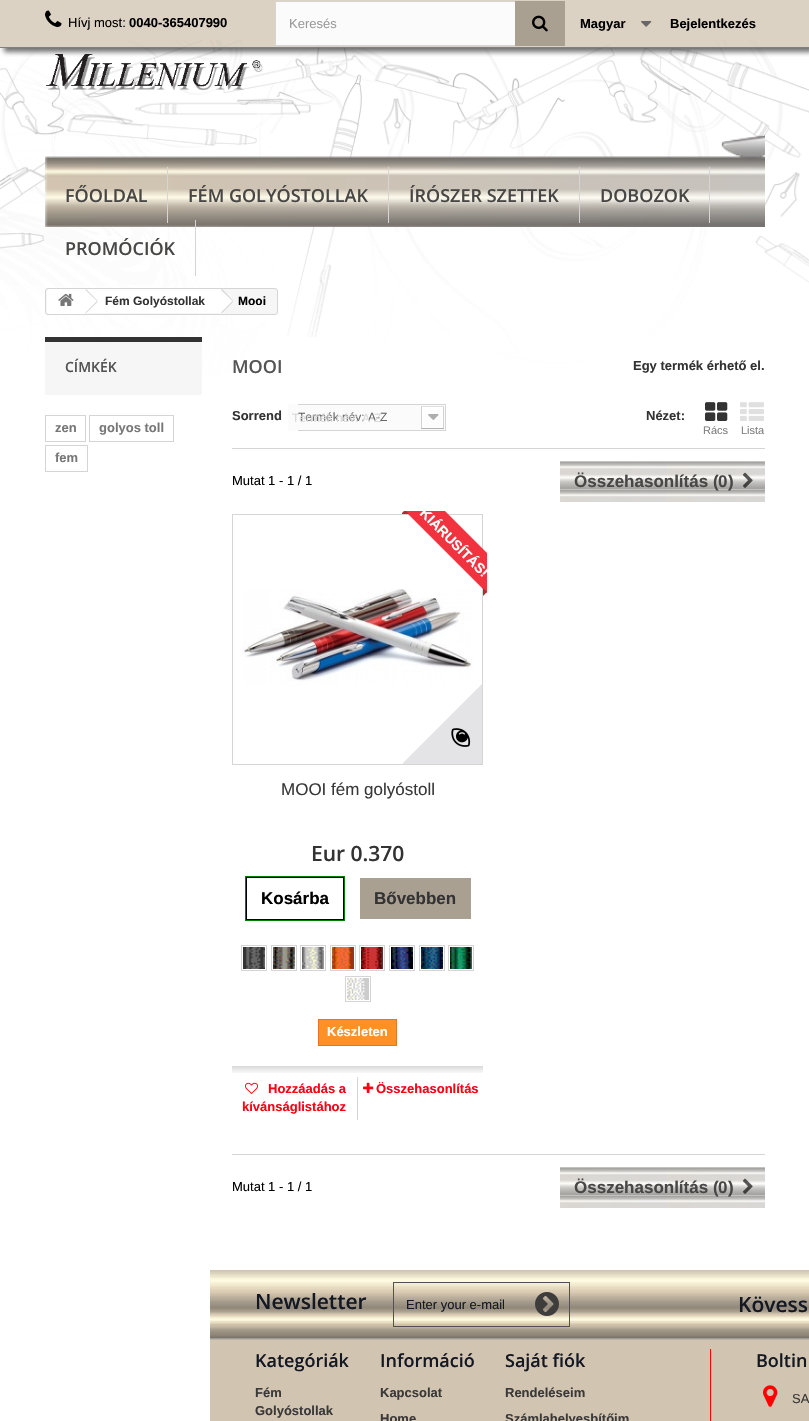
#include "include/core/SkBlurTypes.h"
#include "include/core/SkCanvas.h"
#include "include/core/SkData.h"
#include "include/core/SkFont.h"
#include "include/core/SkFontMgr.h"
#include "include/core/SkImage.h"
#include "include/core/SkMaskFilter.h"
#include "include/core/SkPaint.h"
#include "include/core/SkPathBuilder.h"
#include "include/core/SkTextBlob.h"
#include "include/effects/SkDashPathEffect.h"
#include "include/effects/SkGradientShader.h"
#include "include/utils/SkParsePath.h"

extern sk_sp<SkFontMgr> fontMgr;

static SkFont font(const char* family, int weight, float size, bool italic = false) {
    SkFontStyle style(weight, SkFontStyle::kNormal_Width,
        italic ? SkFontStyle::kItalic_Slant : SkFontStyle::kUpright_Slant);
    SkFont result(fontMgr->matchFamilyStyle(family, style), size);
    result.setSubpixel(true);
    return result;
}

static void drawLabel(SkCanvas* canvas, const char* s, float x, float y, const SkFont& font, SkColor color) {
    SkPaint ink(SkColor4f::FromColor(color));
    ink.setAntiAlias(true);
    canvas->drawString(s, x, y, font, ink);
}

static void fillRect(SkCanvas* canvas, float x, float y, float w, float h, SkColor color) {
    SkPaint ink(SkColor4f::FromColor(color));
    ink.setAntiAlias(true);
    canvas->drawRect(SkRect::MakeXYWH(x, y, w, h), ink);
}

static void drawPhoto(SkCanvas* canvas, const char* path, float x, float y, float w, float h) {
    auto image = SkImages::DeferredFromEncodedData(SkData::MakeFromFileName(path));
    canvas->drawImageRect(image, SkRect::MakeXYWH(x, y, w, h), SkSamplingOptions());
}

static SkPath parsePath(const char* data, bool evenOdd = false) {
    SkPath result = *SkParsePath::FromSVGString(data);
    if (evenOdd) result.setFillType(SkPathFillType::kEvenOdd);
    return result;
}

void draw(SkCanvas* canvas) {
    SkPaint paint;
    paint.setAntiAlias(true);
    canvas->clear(0xFFFFFFFF);
    drawPhoto(canvas, "assets/img1.png", 0, 40, 809, 334);
    drawPhoto(canvas, "assets/img5.png", 46, 54, 217, 37);
    canvas->save();
    canvas->clipRect(SkRect::MakeXYWH(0, 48, 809, 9));
    paint.setColor(0xB3323232);
    paint.setMaskFilter(SkMaskFilter::MakeBlur(kNormal_SkBlurStyle, 2.5f));
    canvas->drawRect(SkRect::MakeXYWH(4, 4, 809, 48), paint);
    paint.setMaskFilter(nullptr);
    canvas->restore();
    fillRect(canvas, 0, 0, 809, 47, 0xC4D1C4B1);
    fillRect(canvas, 0, 47, 809, 1, 0xFF808080);
    drawPhoto(canvas, "assets/img2.png", 45, 10, 17, 17);
    SkFont font1 = font("Liberation Sans", 400, 13);
    drawLabel(canvas, "Hívj most:", 68, 27, font1, 0xFF000000);
    SkFont font2 = font("Liberation Sans", 700, 13);
    drawLabel(canvas, "0040-365407990", 129, 27, font2, 0xFF000000);
    drawLabel(canvas, "Magyar", 580, 28, font2, 0xFF000000);
    drawPhoto(canvas, "assets/img3.png", 641, 21, 11, 6);
    drawLabel(canvas, "Bejelentkezés", 670, 28, font2, 0xFF000000);
    fillRect(canvas, 276, 2, 239, 43, 0xFFFBFBFB);
    paint.setStroke(true);
    paint.setStrokeWidth(1);
    paint.setColor(0xFFD6D4D4);
    canvas->drawRect(SkRect::MakeXYWH(275.5f, 1.5f, 289, 44), paint);
    drawLabel(canvas, "Keresés", 289, 28, font1, 0xFF999999);
    fillRect(canvas, 515, 1, 50, 45, 0xFFAAA092);
    drawPhoto(canvas, "assets/img4.png", 532, 15, 16, 17);
    drawPhoto(canvas, "assets/img6.png", 45, 134, 720, 93);
    fillRect(canvas, 167, 167, 1, 56, 0xFFD6D4D4);
    SkFont font3 = font("Open Sans", 600, 18);
    drawLabel(canvas, "FŐOLDAL", 65, 202, font3, 0xFF484746);
    fillRect(canvas, 388, 167, 1, 56, 0xFFD6D4D4);
    drawLabel(canvas, "FÉM GOLYÓSTOLLAK", 188, 202, font3, 0xFF484746);
    fillRect(canvas, 579, 167, 1, 56, 0xFFD6D4D4);
    drawLabel(canvas, "ÍRÓSZER SZETTEK", 409, 202, font3, 0xFF484746);
    fillRect(canvas, 709, 167, 1, 56, 0xFFD6D4D4);
    drawLabel(canvas, "DOBOZOK", 600, 202, font3, 0xFF484746);
    fillRect(canvas, 195, 220, 1, 56, 0xFFD6D4D4);
    drawLabel(canvas, "PROMÓCIÓK", 65, 255, font3, 0xFF484746);
    paint.setStroke(false);
    paint.setColor(0xFFF6F6F6);
    canvas->drawRoundRect(SkRect::MakeXYWH(45.5f, 288.5f, 232, 26), 2.5f, 2.5f, paint);
    paint.setStroke(true);
    paint.setColor(0xFFD6D4D4);
    canvas->drawRoundRect(SkRect::MakeXYWH(45.5f, 288.5f, 232, 26), 2.5f, 2.5f, paint);
    paint.setStroke(false);
    paint.setColor(0xFFFFFFFF);
    canvas->drawPath(parsePath("M50 289H85V314H50C48.5 314 47 312.5 47 311V292C47 290.5 48.5 289 50 289Z"), paint);
    drawPhoto(canvas, "assets/img7.png", 58, 293, 16, 13);
    fillRect(canvas, 85, 289, 135, 24, 0xFFFFFFFF);
    paint.setColor(0xFFD6D4D4);
    canvas->drawPath(parsePath("M86 289L97.5 300.5L97 301L85.5 290ZM97 301L97.5 302L86 313L85.5 312.5Z"), paint);
    SkFont font4 = font("Liberation Sans", 700, 12);
    drawLabel(canvas, "Fém Golyóstollak", 105, 305, font4, 0xFF333333);
    paint.setColor(0xFFFFFFFF);
    canvas->drawPath(parsePath("M222.5 290L232.5 300C233.5 300.5 233.5 302 232.5 302.5L222.5 312.5C222 313.5 220.5 313.5 220 312.5L210 302.5C209 302 209 300.5 210 300L220 290C220.5 289 222 289 222.5 290Z"), paint);
    paint.setColor(0xFFD6D4D4);
    canvas->drawPath(parsePath("M222 289L233 300.5L232.5 301L221 290ZM232.5 301L233 302L222 313L221 312.5Z"), paint);
    drawLabel(canvas, "Mooi", 238, 305, font4, 0xFF000000);
    fillRect(canvas, 45, 342, 157, 53, 0xFFF6F6F6);
    fillRect(canvas, 45, 337, 157, 5, 0xFF333333);
    SkFont font5 = font("Open Sans", 600, 14);
    drawLabel(canvas, "CÍMKÉK", 65, 372, font5, 0xFF555454);
    paint.setStroke(true);
    canvas->drawRect(SkRect::MakeXYWH(45.5f, 415.5f, 40, 26), paint);
    drawLabel(canvas, "zen", 55, 432, font2, 0xFF777777);
    canvas->drawRect(SkRect::MakeXYWH(89.5f, 415.5f, 84, 26), paint);
    drawLabel(canvas, "golyos toll", 99, 432, font2, 0xFF777777);
    canvas->drawRect(SkRect::MakeXYWH(45.5f, 445.5f, 42, 26), paint);
    drawLabel(canvas, "fem", 55, 462, font2, 0xFF777777);
    fillRect(canvas, 279, 337, 37, 37, 0xFFFFFFFF);
    drawLabel(canvas, "MOOI", 232, 373, font3, 0xFF555454);
    drawLabel(canvas, "Egy termék érhető el.", 633, 370, font2, 0xFF333333);
    fillRect(canvas, 232, 448, 533, 1, 0xFFD6D4D4);
    drawLabel(canvas, "Sorrend", 232, 420, font2, 0xFF333333);
    fillRect(canvas, 288, 404, 10, 27, 0xFFFBFBFB);
    drawPhoto(canvas, "assets/img8.png", 298, 404, 148, 27);
    SkFont font6 = font("Liberation Sans", 400, 12);
    drawLabel(canvas, "Termék név: A-Z", 298, 421, font6, 0xFF666666);
    drawLabel(canvas, "Termék név: A-Z", 292, 422, font6, 0xFFD9D9D9);
    drawLabel(canvas, "Nézet:", 646, 420, font2, 0xFF333333);
    drawPhoto(canvas, "assets/img9.png", 705, 402, 23, 19);
    SkFont font7 = font("Liberation Sans", 400, 11);
    drawLabel(canvas, "Rács", 703, 434, font7, 0xFF808080);
    drawPhoto(canvas, "assets/img10.png", 740, 402, 24, 19);
    drawLabel(canvas, "Lista", 741, 434, font7, 0xFF808080);
    drawLabel(canvas, "Mutat 1 - 1 / 1", 232, 485, font1, 0xFF000000);
    drawPhoto(canvas, "assets/img11.png", 560, 461, 205, 41);
    SkFont font8 = font("Liberation Sans", 700, 17);
    drawLabel(canvas, "Összehasonlítás (", 574, 487, font8, 0xFF484746);
    drawLabel(canvas, "0", 718, 487, font8, 0xFF484746);
    drawLabel(canvas, ")", 728, 487, font8, 0xFF484746);
    drawPhoto(canvas, "assets/img12.png", 742, 472, 11, 16);
    canvas->drawRect(SkRect::MakeXYWH(232.5f, 514.5f, 250, 250), paint);
    drawPhoto(canvas, "assets/img13.png", 242, 589, 231, 96);
    canvas->save();
    canvas->clipRect(SkRect::MakeXYWH(402, 511, 85, 85));
    paint.setStroke(false);
    paint.setColor(0xFFF13340);
    canvas->drawPath(parsePath("M419 485L511 577L491 597L399 505Z"), paint);
    paint.setColor(0xFFAD2B34);
    canvas->drawPath(parsePath("M409 514H401L405 510Z"), paint);
    SkFont font9 = font("Liberation Sans", 700, 14);
    canvas->save();
    canvas->rotate(45, 419, 514);
    drawLabel(canvas, "KIÁRUSÍTÁS!", 419, 514, font9, 0xFFFFFFFF);
    canvas->restore();
    canvas->restore();
    canvas->drawPath(parsePath("M483 596V588L487 592Z"), paint);
    canvas->save();
    canvas->clipRect(SkRect::MakeXYWH(267, 609, 215, 155));
    paint.setColor(0xFFE4E4E6);
    canvas->drawPath(parsePath("M488 678L548 739L456 830L396 770Z"), paint);
    canvas->restore();
    drawPhoto(canvas, "assets/img14.png", 451, 728, 20, 19);
    SkFont font10 = font("Liberation Sans", 400, 17);
    drawLabel(canvas, "MOOI fém golyóstoll", 281, 795, font10, 0xFF3A3939);
    SkFont font11 = font("Open Sans", 600, 21);
    drawLabel(canvas, "Eur 0.370", 311, 861, font11, 0xFF333333);
    paint.setStroke(true);
    paint.setColor(0xFF008000);
    canvas->drawRect(SkRect::MakeXYWH(245.5f, 876.5f, 99, 44), paint);
    paint.setColor(0xFF000000);
    canvas->drawRect(SkRect::MakeXYWH(246.5f, 877.5f, 97, 42), paint);
    drawLabel(canvas, "Kosárba", 261, 904, font8, 0xFF000000);
    fillRect(canvas, 360, 878, 111, 41, 0xFFAAA092);
    drawLabel(canvas, "Bővebben", 374, 904, font8, 0xFF333333);
    paint.setColor(0xFFD6D4D4);
    canvas->drawRect(SkRect::MakeXYWH(241.5f, 945.5f, 25, 25), paint);
    drawPhoto(canvas, "assets/img15.png", 243, 947, 22, 22);
    canvas->drawRect(SkRect::MakeXYWH(271.5f, 945.5f, 25, 25), paint);
    drawPhoto(canvas, "assets/img16.png", 273, 947, 22, 22);
    canvas->drawRect(SkRect::MakeXYWH(300.5f, 945.5f, 25, 25), paint);
    drawPhoto(canvas, "assets/img17.png", 302, 947, 22, 22);
    canvas->drawRect(SkRect::MakeXYWH(330.5f, 945.5f, 25, 25), paint);
    drawPhoto(canvas, "assets/img18.png", 332, 947, 22, 22);
    canvas->drawRect(SkRect::MakeXYWH(359.5f, 945.5f, 25, 25), paint);
    drawPhoto(canvas, "assets/img19.png", 361, 947, 22, 22);
    canvas->drawRect(SkRect::MakeXYWH(389.5f, 945.5f, 25, 25), paint);
    drawPhoto(canvas, "assets/img20.png", 391, 947, 22, 22);
    canvas->drawRect(SkRect::MakeXYWH(419.5f, 945.5f, 25, 25), paint);
    drawPhoto(canvas, "assets/img21.png", 421, 947, 22, 22);
    canvas->drawRect(SkRect::MakeXYWH(448.5f, 945.5f, 25, 25), paint);
    drawPhoto(canvas, "assets/img22.png", 450, 947, 22, 22);
    canvas->drawRect(SkRect::MakeXYWH(345.5f, 976.5f, 25, 25), paint);
    drawPhoto(canvas, "assets/img23.png", 347, 978, 22, 22);
    paint.setStroke(false);
    paint.setColor(0xFFFE9126);
    canvas->drawRect(SkRect::MakeXYWH(318.5f, 1019.5f, 78, 26), paint);
    paint.setStroke(true);
    paint.setColor(0xFFE4752B);
    canvas->drawRect(SkRect::MakeXYWH(318.5f, 1019.5f, 78, 26), paint);
    drawLabel(canvas, "Készleten", 327, 1036, font2, 0xFFFFFFFF);
    drawPhoto(canvas, "assets/img24.png", 232, 1066, 251, 7);
    fillRect(canvas, 357, 1077, 1, 43, 0xFFD6D4D4);
    drawPhoto(canvas, "assets/img25.png", 245, 1082, 13, 12);
    drawLabel(canvas, "Hozzáadás a", 268, 1093, font2, 0xFFFF0011);
    drawLabel(canvas, "kívánságlistához", 242, 1111, font2, 0xFFFF0011);
    drawPhoto(canvas, "assets/img26.png", 363, 1082, 11, 11);
    drawLabel(canvas, "Összehasonlítás", 376, 1093, font2, 0xFFFF0011);
    fillRect(canvas, 232, 1154, 533, 1, 0xFFD6D4D4);
    drawLabel(canvas, "Mutat 1 - 1 / 1", 232, 1191, font1, 0xFF000000);
    drawPhoto(canvas, "assets/img11.png", 560, 1167, 205, 41);
    drawLabel(canvas, "Összehasonlítás (", 574, 1193, font8, 0xFF484746);
    drawLabel(canvas, "0", 718, 1193, font8, 0xFF484746);
    drawLabel(canvas, ")", 728, 1193, font8, 0xFF484746);
    drawPhoto(canvas, "assets/img12.png", 742, 1178, 11, 16);
    fillRect(canvas, 210, 1270, 599, 151, 0xFFD1C4B1);
    drawPhoto(canvas, "assets/img27.png", 210, 1271, 599, 69);
    drawLabel(canvas, "Newsletter", 255, 1309, font11, 0xFF141823);
    paint.setColor(0xFF515151);
    canvas->drawRect(SkRect::MakeXYWH(393.5f, 1282.5f, 176, 44), paint);
    drawLabel(canvas, "Enter your e-mail", 406, 1309, font1, 0xFF141823);
    drawPhoto(canvas, "assets/img28.png", 535, 1292, 24, 24);
    drawLabel(canvas, "Kövess", 738, 1312, font11, 0xFF141823);
    drawLabel(canvas, "Kategóriák", 255, 1367, font3, 0xFF141823);
    drawLabel(canvas, "Fém", 255, 1397, font2, 0xFF3A3939);
    drawLabel(canvas, "Golyóstollak", 255, 1415, font2, 0xFF3A3939);
    drawLabel(canvas, "Információ", 380, 1367, font3, 0xFF141823);
    drawLabel(canvas, "Kapcsolat", 380, 1397, font2, 0xFF3A3939);
    drawLabel(canvas, "Home", 380, 1423, font2, 0xFF3A3939);
    drawLabel(canvas, "Saját fiók", 505, 1367, font3, 0xFF141823);
    drawLabel(canvas, "Rendeléseim", 505, 1397, font2, 0xFF3A3939);
    drawLabel(canvas, "Számlahelyesbítőim", 505, 1423, font2, 0xFF3A3939);
    fillRect(canvas, 710, 1349, 1, 72, 0xFFFF0000);
    drawLabel(canvas, "Boltin", 756, 1367, font3, 0xFF141823);
    drawPhoto(canvas, "assets/img29.png", 763, 1385, 15, 22);
    drawLabel(canvas, "SA", 792, 1403, font1, 0xFF3A3939);
}
